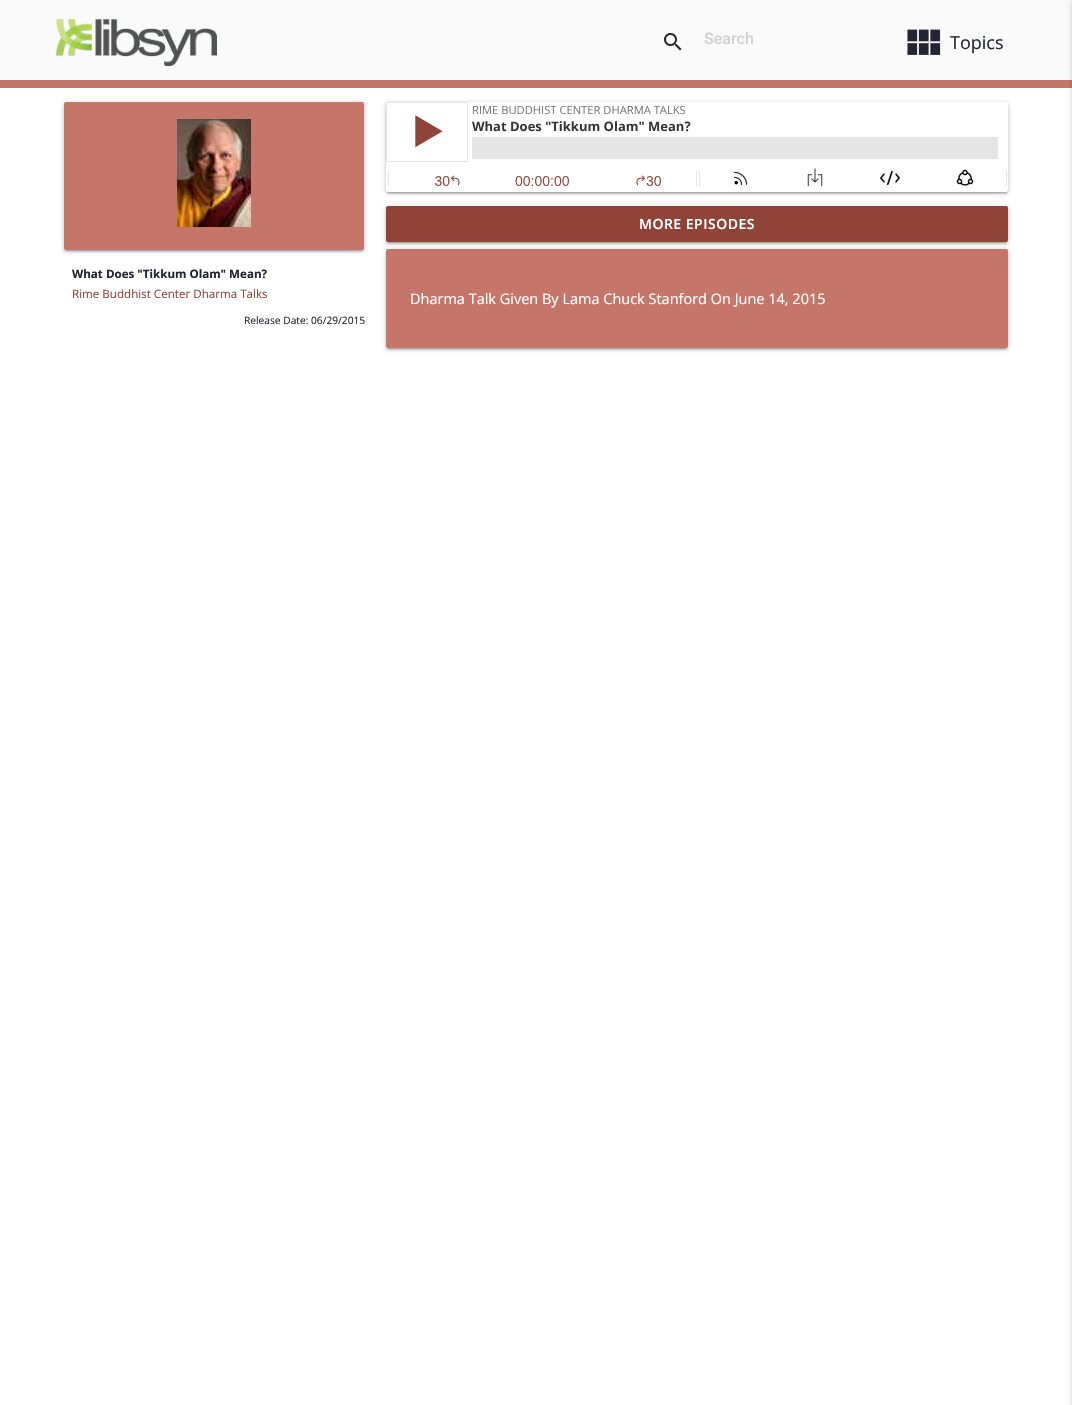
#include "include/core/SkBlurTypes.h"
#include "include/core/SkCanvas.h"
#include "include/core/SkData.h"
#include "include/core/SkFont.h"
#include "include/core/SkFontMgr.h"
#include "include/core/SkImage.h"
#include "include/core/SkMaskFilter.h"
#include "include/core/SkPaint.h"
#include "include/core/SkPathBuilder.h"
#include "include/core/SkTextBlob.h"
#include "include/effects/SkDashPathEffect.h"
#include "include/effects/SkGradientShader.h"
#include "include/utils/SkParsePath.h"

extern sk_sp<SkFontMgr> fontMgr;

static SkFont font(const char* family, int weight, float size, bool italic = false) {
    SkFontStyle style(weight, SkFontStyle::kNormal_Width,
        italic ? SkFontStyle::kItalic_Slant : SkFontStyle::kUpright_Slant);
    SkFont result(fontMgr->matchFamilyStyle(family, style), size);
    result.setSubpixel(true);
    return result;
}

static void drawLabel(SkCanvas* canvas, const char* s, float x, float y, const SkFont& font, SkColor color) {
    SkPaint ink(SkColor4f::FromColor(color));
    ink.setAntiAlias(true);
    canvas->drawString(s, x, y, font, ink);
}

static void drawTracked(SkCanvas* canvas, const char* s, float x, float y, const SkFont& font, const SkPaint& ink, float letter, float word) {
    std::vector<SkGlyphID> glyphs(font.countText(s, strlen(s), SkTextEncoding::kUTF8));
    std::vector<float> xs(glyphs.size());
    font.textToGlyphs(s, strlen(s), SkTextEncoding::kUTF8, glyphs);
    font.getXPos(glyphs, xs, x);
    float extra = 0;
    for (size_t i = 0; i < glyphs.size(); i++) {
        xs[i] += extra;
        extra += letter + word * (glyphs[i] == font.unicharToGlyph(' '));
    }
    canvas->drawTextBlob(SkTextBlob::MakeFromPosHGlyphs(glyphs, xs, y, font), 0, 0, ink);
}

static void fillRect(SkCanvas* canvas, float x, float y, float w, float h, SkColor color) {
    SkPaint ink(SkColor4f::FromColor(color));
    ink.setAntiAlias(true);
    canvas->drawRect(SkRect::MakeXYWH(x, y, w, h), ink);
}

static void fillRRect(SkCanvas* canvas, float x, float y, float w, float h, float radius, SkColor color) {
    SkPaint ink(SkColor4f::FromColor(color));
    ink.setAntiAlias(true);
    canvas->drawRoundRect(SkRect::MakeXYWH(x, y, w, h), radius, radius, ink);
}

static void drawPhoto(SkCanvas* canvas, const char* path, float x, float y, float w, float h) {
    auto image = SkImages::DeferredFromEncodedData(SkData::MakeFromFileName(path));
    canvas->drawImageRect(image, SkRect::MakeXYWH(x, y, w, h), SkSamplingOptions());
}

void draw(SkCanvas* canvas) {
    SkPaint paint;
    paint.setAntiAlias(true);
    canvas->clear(0xFFFFFFFF);
    fillRect(canvas, 0, 0, 1072, 80, 0xFFFAFAFA);
    drawPhoto(canvas, "assets/img1.png", 55, 19, 162, 47);
    drawPhoto(canvas, "assets/img2.png", 664, 33, 18, 18);
    SkFont font1 = font("Roboto", 500, 16);
    drawLabel(canvas, "Search", 704, 44, font1, 0xFFD1D1D1);
    drawPhoto(canvas, "assets/img3.png", 907, 29, 34, 26);
    SkFont font2 = font("Open Sans", 400, 18);
    drawLabel(canvas, "Topics", 950, 49, font2, 0xFF232530);
    fillRect(canvas, 0, 80, 1072, 8, 0xFFC57668);
    paint.setColor(0x33000000);
    paint.setMaskFilter(SkMaskFilter::MakeBlur(kNormal_SkBlurStyle, 2.5f));
    canvas->drawRect(SkRect::MakeXYWH(1072, 1, 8, 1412), paint);
    paint.setMaskFilter(nullptr);
    paint.setMaskFilter(SkMaskFilter::MakeBlur(kNormal_SkBlurStyle, 2.5f));
    canvas->drawRoundRect(SkRect::MakeXYWH(386, 103, 622, 90), 2, 2, paint);
    paint.setMaskFilter(nullptr);
    paint.setColor(0x1F000000);
    paint.setMaskFilter(SkMaskFilter::MakeBlur(kNormal_SkBlurStyle, 0.5f));
    canvas->drawRect(SkRect::MakeXYWH(388, 107, 618, 86), paint);
    paint.setMaskFilter(nullptr);
    paint.setColor(0x24000000);
    paint.setMaskFilter(SkMaskFilter::MakeBlur(kNormal_SkBlurStyle, 1));
    canvas->drawRoundRect(SkRect::MakeXYWH(386, 104, 622, 90), 2, 2, paint);
    paint.setMaskFilter(nullptr);
    fillRRect(canvas, 386, 102, 622, 90, 2, 0xFFFFFFFF);
    drawPhoto(canvas, "assets/img4.png", 386, 102, 621, 84);
    paint.setColor(0x33000000);
    paint.setMaskFilter(SkMaskFilter::MakeBlur(kNormal_SkBlurStyle, 2.5f));
    canvas->drawRoundRect(SkRect::MakeXYWH(386, 207, 622, 36), 2, 2, paint);
    paint.setMaskFilter(nullptr);
    paint.setColor(0x1F000000);
    paint.setMaskFilter(SkMaskFilter::MakeBlur(kNormal_SkBlurStyle, 0.5f));
    canvas->drawRect(SkRect::MakeXYWH(388, 211, 618, 32), paint);
    paint.setMaskFilter(nullptr);
    paint.setColor(0x24000000);
    paint.setMaskFilter(SkMaskFilter::MakeBlur(kNormal_SkBlurStyle, 1));
    canvas->drawRoundRect(SkRect::MakeXYWH(386, 208, 622, 36), 2, 2, paint);
    paint.setMaskFilter(nullptr);
    fillRRect(canvas, 386, 206, 622, 36, 2, 0xFF904437);
    SkFont font3 = font("Open Sans", 600, 14);
    paint.setColor(0xFFFFFFFF);
    drawTracked(canvas, "MORE EPISODES", 639, 229, font3, paint, 0.5f, 0);
    paint.setColor(0x33000000);
    paint.setMaskFilter(SkMaskFilter::MakeBlur(kNormal_SkBlurStyle, 2.5f));
    canvas->drawRoundRect(SkRect::MakeXYWH(64, 103, 300, 148), 2, 2, paint);
    paint.setMaskFilter(nullptr);
    paint.setColor(0x1F000000);
    paint.setMaskFilter(SkMaskFilter::MakeBlur(kNormal_SkBlurStyle, 0.5f));
    canvas->drawRect(SkRect::MakeXYWH(66, 107, 296, 144), paint);
    paint.setMaskFilter(nullptr);
    paint.setColor(0x24000000);
    paint.setMaskFilter(SkMaskFilter::MakeBlur(kNormal_SkBlurStyle, 1));
    canvas->drawRoundRect(SkRect::MakeXYWH(64, 104, 300, 148), 2, 2, paint);
    paint.setMaskFilter(nullptr);
    fillRRect(canvas, 64, 102, 300, 148, 2, 0xFFC57668);
    drawPhoto(canvas, "assets/img5.png", 177, 119, 74, 108);
    SkFont font4 = font("Open Sans", 700, 11.6f);
    drawLabel(canvas, "What Does \"Tikkum Olam\" Mean?", 72, 278, font4, 0xFF232530);
    SkFont font5 = font("Open Sans", 400, 11.6f);
    drawLabel(canvas, "Rime Buddhist Center Dharma Talks", 72, 298, font5, 0xFF904437);
    SkFont font6 = font("Open Sans", 400, 10.2f);
    drawLabel(canvas, "Release Date: 06/29/2015", 244, 324, font6, 0xFF232530);
    paint.setColor(0x33000000);
    paint.setMaskFilter(SkMaskFilter::MakeBlur(kNormal_SkBlurStyle, 2.5f));
    canvas->drawRoundRect(SkRect::MakeXYWH(386, 250, 622, 99), 2, 2, paint);
    paint.setMaskFilter(nullptr);
    paint.setColor(0x1F000000);
    paint.setMaskFilter(SkMaskFilter::MakeBlur(kNormal_SkBlurStyle, 0.5f));
    canvas->drawRect(SkRect::MakeXYWH(388, 254, 618, 95), paint);
    paint.setMaskFilter(nullptr);
    paint.setColor(0x24000000);
    paint.setMaskFilter(SkMaskFilter::MakeBlur(kNormal_SkBlurStyle, 1));
    canvas->drawRoundRect(SkRect::MakeXYWH(386, 251, 622, 99), 2, 2, paint);
    paint.setMaskFilter(nullptr);
    fillRRect(canvas, 386, 249, 622, 99, 2, 0xFFC57668);
    SkFont font7 = font("Open Sans", 400, 14.5f);
    drawLabel(canvas, "Dharma Talk Given By Lama Chuck Stanford On June 14, 2015", 410, 304, font7, 0xFFFFFFFF);
}
